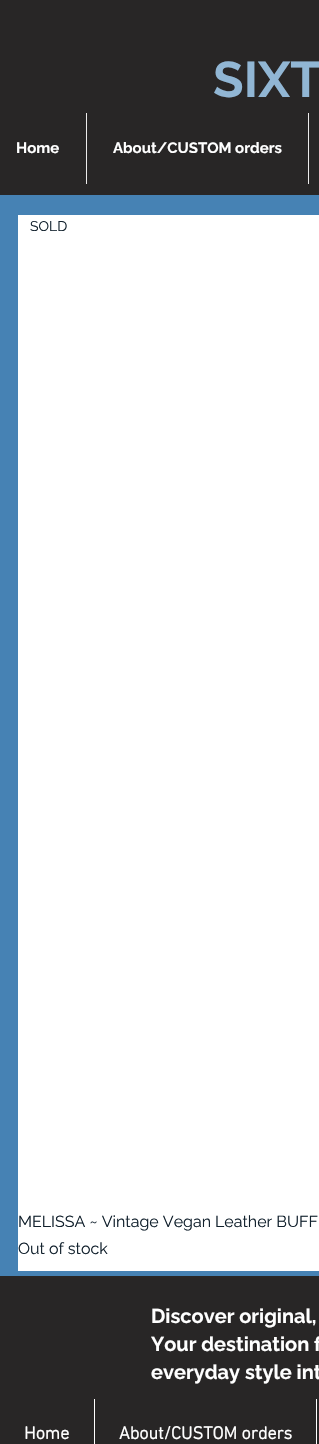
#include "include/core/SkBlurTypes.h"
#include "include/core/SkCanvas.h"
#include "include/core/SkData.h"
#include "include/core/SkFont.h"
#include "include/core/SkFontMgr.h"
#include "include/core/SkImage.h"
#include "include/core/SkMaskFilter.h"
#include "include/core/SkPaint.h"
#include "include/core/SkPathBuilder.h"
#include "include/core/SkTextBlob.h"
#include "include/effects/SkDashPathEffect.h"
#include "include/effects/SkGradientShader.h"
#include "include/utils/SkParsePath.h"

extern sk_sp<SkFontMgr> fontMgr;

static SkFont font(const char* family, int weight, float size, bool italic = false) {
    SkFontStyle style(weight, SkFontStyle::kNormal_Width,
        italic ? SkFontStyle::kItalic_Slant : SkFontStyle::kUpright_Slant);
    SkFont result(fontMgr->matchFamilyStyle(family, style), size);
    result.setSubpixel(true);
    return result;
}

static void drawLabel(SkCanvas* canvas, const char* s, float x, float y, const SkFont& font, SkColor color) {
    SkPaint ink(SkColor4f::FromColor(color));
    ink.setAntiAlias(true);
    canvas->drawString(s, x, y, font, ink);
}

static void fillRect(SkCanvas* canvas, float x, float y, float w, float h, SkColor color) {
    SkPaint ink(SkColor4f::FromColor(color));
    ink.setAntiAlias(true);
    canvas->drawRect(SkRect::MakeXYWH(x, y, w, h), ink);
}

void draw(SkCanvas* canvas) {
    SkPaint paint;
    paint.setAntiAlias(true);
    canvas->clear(0xFF282626);
    SkFont font1 = font("Raleway", 700, 50);
    drawLabel(canvas, "SIXT", 213, 97, font1, 0xFF91B6D4);
    SkFont font2 = font("Raleway", 700, 15);
    drawLabel(canvas, "Home", 16, 153, font2, 0xFFFFFFFF);
    fillRect(canvas, 86, 113, 1, 71, 0xFFECEBEB);
    drawLabel(canvas, "About/CUSTOM orders", 113, 153, font2, 0xFFFFFFFF);
    fillRect(canvas, 308, 113, 1, 71, 0xFFECEBEB);
    fillRect(canvas, 0, 195, 319, 1081, 0xFF4682B4);
    fillRect(canvas, 18, 215, 301, 1056, 0xFFFFFFFF);
    SkFont font3 = font("Raleway", 400, 14);
    drawLabel(canvas, "SOLD", 30, 231, font3, 0xFF11202C);
    SkFont font4 = font("Raleway", 400, 16);
    drawLabel(canvas, "MELISSA ~ Vintage Vegan Leather BUFF", 18, 1227, font4, 0xFF11202C);
    drawLabel(canvas, "Out of stock", 18, 1254, font4, 0xFF11202C);
    SkFont font5 = font("Raleway", 700, 20);
    drawLabel(canvas, "Discover original,", 151, 1323, font5, 0xFFFFFFFF);
    drawLabel(canvas, "Your destination f", 151, 1351, font5, 0xFFFFFFFF);
    drawLabel(canvas, "everyday style int", 151, 1379, font5, 0xFFFFFFFF);
    SkFont font6 = font("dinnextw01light", 700, 18);
    drawLabel(canvas, "Home", 24, 1439, font6, 0xFFFFFFFF);
    fillRect(canvas, 94, 1399, 1, 45, 0xFFFFFFFF);
    drawLabel(canvas, "About/CUSTOM orders", 119, 1439, font6, 0xFFFFFFFF);
    fillRect(canvas, 316, 1399, 1, 45, 0xFFFFFFFF);
}
